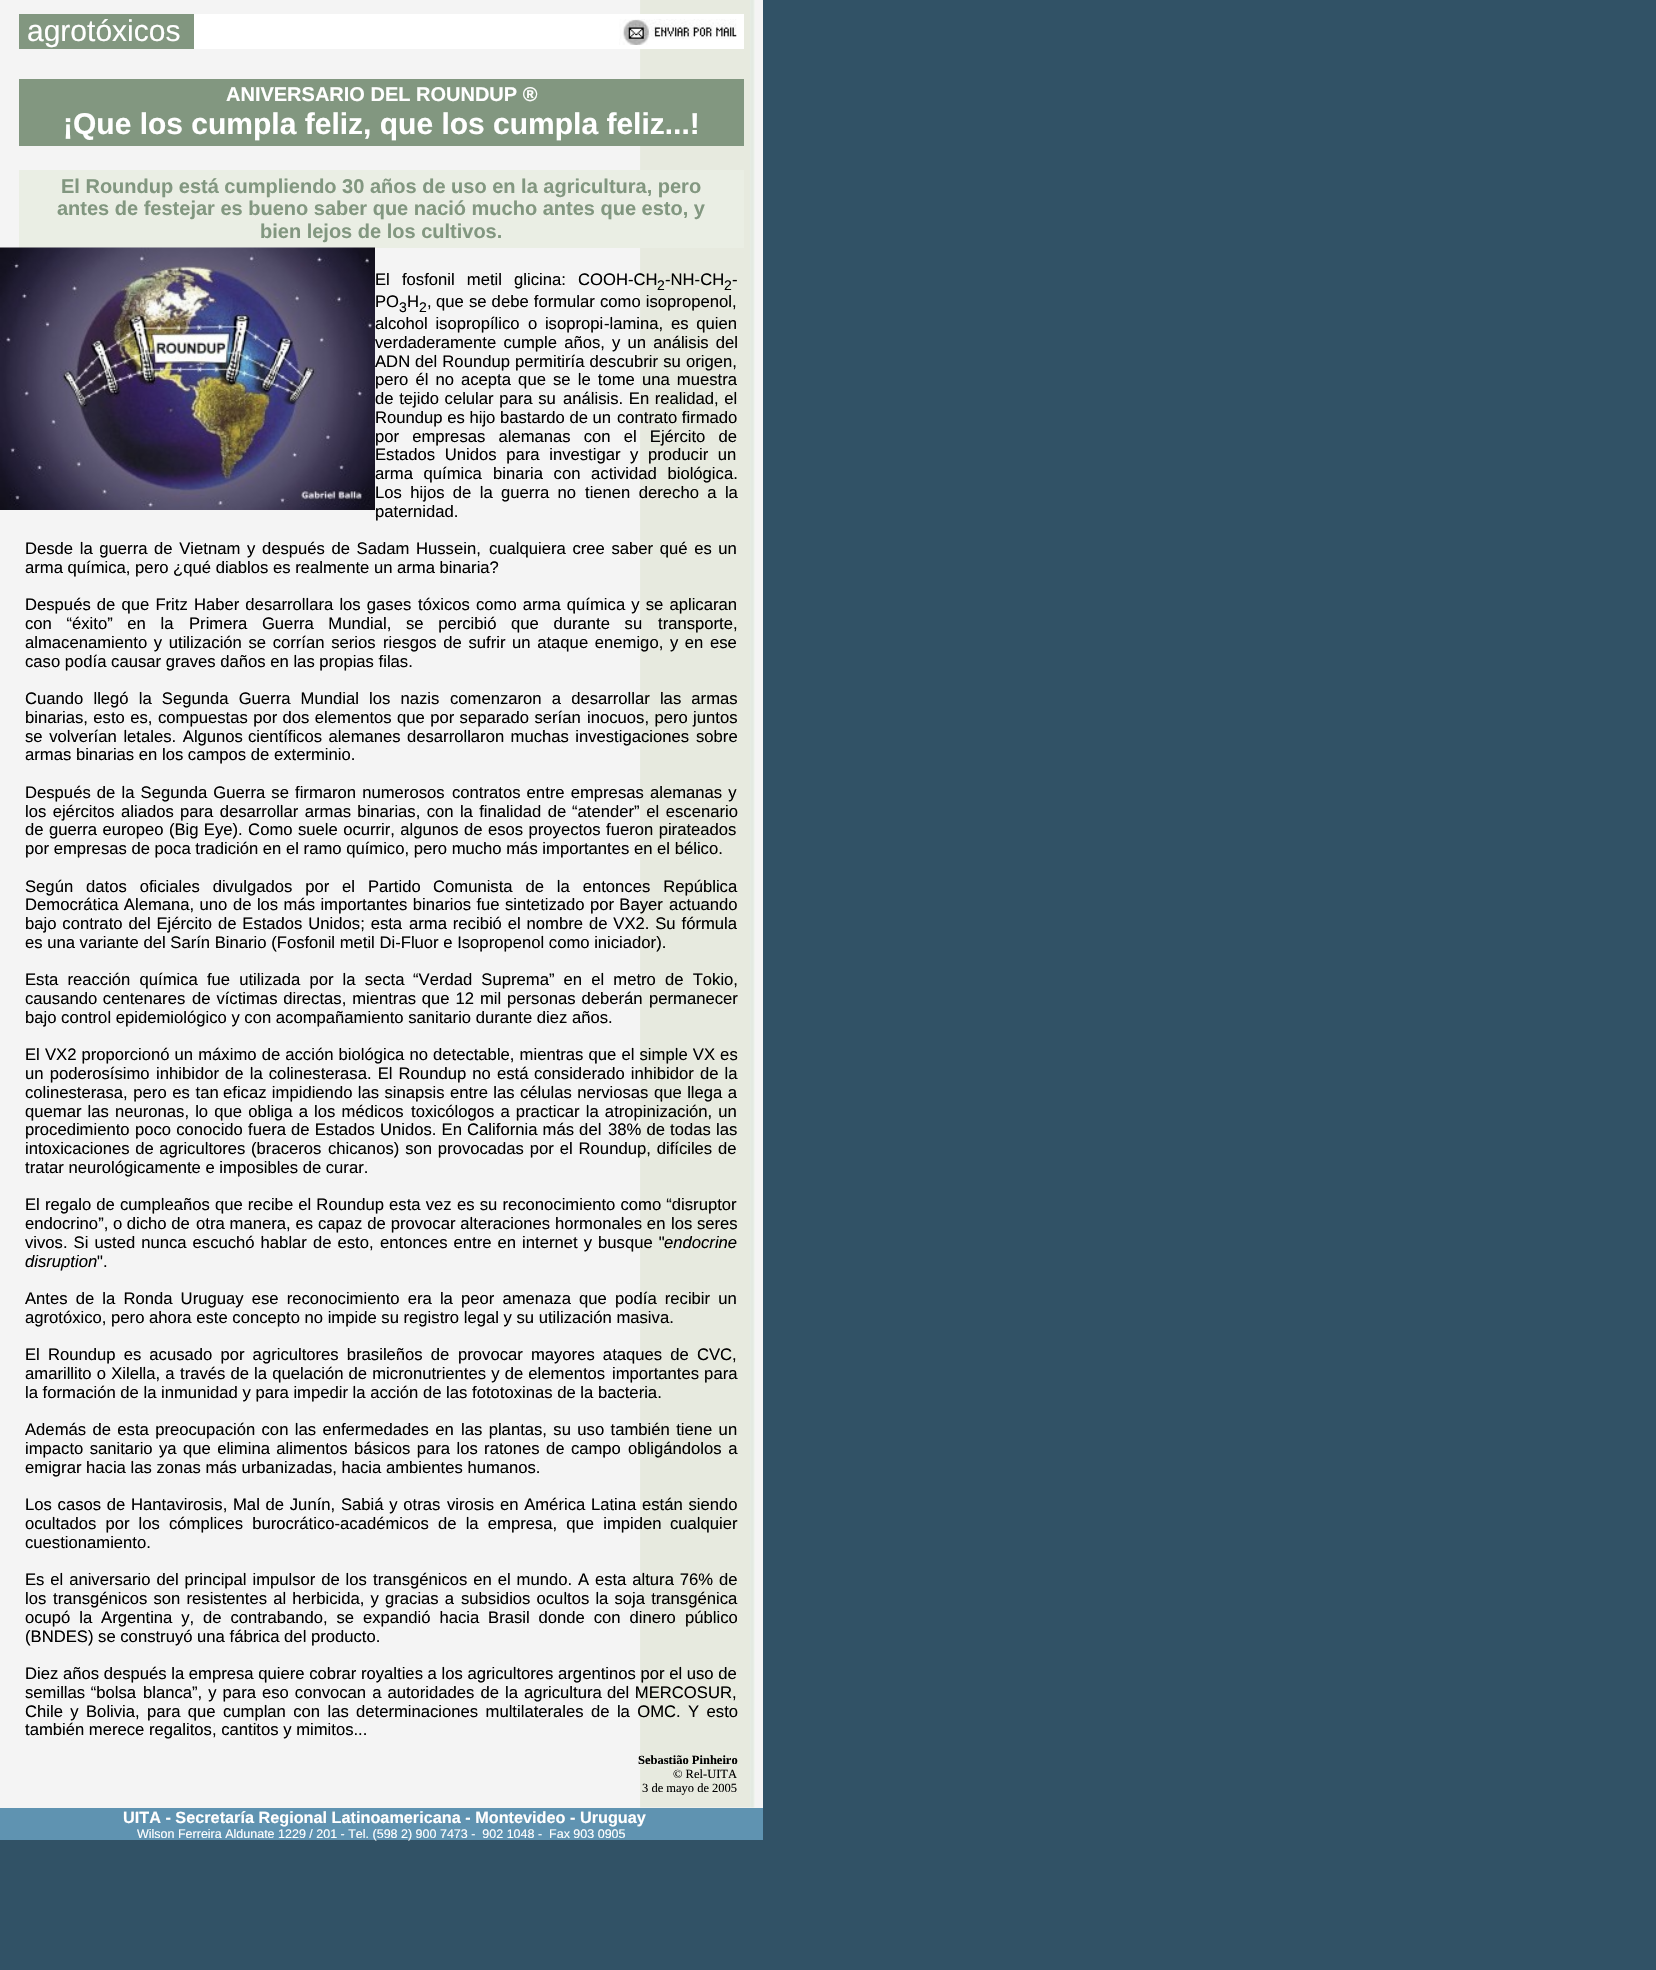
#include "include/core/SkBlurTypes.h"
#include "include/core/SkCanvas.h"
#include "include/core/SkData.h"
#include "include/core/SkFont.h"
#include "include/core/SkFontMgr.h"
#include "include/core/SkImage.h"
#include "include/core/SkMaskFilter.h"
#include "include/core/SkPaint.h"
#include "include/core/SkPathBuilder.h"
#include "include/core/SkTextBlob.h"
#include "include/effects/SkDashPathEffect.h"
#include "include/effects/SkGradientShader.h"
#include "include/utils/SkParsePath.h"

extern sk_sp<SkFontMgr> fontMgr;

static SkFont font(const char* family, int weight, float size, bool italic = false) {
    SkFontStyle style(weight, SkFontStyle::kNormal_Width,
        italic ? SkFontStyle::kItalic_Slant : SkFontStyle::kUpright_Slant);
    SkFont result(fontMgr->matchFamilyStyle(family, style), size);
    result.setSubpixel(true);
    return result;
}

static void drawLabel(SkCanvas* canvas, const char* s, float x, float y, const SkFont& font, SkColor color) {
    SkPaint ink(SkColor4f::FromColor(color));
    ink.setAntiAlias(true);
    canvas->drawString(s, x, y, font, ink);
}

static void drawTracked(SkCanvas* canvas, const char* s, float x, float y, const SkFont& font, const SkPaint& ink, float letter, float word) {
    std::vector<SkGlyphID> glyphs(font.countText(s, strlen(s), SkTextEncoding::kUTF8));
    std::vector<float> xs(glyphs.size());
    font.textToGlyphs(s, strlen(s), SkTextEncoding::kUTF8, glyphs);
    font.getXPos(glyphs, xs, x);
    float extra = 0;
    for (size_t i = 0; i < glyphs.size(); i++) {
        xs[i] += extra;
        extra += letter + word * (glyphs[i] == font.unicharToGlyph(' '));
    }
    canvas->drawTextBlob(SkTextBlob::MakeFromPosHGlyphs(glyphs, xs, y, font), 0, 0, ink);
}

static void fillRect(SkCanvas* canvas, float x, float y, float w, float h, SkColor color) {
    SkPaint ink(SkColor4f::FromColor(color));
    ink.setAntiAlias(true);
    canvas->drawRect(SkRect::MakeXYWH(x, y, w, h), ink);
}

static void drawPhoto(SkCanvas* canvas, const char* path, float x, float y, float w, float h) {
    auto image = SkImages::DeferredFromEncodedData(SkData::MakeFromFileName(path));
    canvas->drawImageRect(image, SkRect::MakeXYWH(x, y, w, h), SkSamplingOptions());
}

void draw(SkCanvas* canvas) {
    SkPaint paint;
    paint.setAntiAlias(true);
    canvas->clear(0xFF315266);
    fillRect(canvas, 0, 1808, 763, 32, 0xFF5F93B1);
    fillRect(canvas, 0, 0, 763, 1808, 0xFFF4F4F4);
    drawPhoto(canvas, "assets/img1.png", 640, 0, 115, 1808);
    fillRect(canvas, 19, 14, 175, 35, 0xFF829780);
    SkFont font1 = font("Liberation Sans", 400, 30);
    drawLabel(canvas, "agrotóxicos", 27, 41, font1, 0xFFFFFFFF);
    fillRect(canvas, 194, 14, 550, 35, 0xFFFFFFFF);
    drawPhoto(canvas, "assets/img2.png", 619, 19, 118, 26);
    fillRect(canvas, 19, 79, 725, 67, 0xFF829780);
    SkFont font2 = font("Liberation Sans", 700, 20);
    drawLabel(canvas, "ANIVERSARIO DEL ROUNDUP ®", 226, 101, font2, 0xFFFFFFFF);
    SkFont font3 = font("Liberation Sans", 700, 30);
    drawLabel(canvas, "¡Que los cumpla feliz, que los cumpla feliz...!", 63, 134, font3, 0xFFFFFFFF);
    fillRect(canvas, 19, 170, 725, 78, 0xFFEAEEE4);
    drawLabel(canvas, "El Roundup está cumpliendo 30 años de uso en la agricultura, pero", 61, 193, font2, 0xFF829780);
    drawLabel(canvas, "antes de festejar es bueno saber que nació mucho antes que esto, y", 57, 215, font2, 0xFF829780);
    drawLabel(canvas, "bien lejos de los cultivos.", 260, 238, font2, 0xFF829780);
    drawPhoto(canvas, "assets/img3.png", 0, 247, 375, 263);
    SkFont font4 = font("Liberation Sans", 400, 16.65f);
    paint.setColor(0xFF000000);
    drawTracked(canvas, "El fosfonil metil glicina: COOH-CH", 375, 285, font4, paint, 0, 7.5f);
    SkFont font5 = font("Liberation Sans", 400, 14);
    drawLabel(canvas, "2", 657, 290, font5, 0xFF000000);
    drawLabel(canvas, "-NH-CH", 665, 285, font4, 0xFF000000);
    drawLabel(canvas, "2", 724, 290, font5, 0xFF000000);
    drawLabel(canvas, "-", 732, 285, font4, 0xFF000000);
    drawLabel(canvas, "PO", 375, 307, font4, 0xFF000000);
    drawLabel(canvas, "3", 399, 312, font5, 0xFF000000);
    drawLabel(canvas, "H", 407, 307, font4, 0xFF000000);
    drawLabel(canvas, "2", 419, 312, font5, 0xFF000000);
    drawLabel(canvas, ",", 427, 307, font4, 0xFF000000);
    drawTracked(canvas, "que se debe formular como isopropenol,", 436, 307, font4, paint, 0, 0.5f);
    drawTracked(canvas, "alcohol isopropílico", 375, 329, font4, paint, 0, 3);
    drawTracked(canvas, "o isopropi", 528, 329, font4, paint, 0, 3);
    drawLabel(canvas, "-lamina,", 604, 329, font4, 0xFF000000);
    drawTracked(canvas, "es quien", 671, 329, font4, paint, 0, 3);
    drawTracked(canvas, "verdaderamente cumple años, y un análisis del", 375, 348, font4, paint, 0, 2.5f);
    drawLabel(canvas, "ADN", 375, 367, font4, 0xFF000000);
    drawTracked(canvas, "del Roundup permitiría descubrir su origen,", 415, 367, font4, paint, 0, 0.5f);
    drawTracked(canvas, "pero él no", 375, 385, font4, paint, 0, 2.5f);
    drawTracked(canvas, "acepta que se le tome una muestra", 461, 385, font4, paint, 0, 2.5f);
    drawTracked(canvas, "de tejido celular para su", 375, 404, font4, paint, 0, 1);
    drawTracked(canvas, "análisis. En realidad, el", 563, 404, font4, paint, 0, 1);
    drawLabel(canvas, "Roundup es hijo bastardo de un", 375, 423, font4, 0xFF000000);
    drawLabel(canvas, "contrato firmado", 617, 423, font4, 0xFF000000);
    drawTracked(canvas, "por empresas alemanas con el Ejército de", 375, 442, font4, paint, 0, 8.5f);
    drawTracked(canvas, "Estados Unidos para investigar y producir un", 375, 460, font4, paint, 0, 5);
    drawTracked(canvas, "arma química", 375, 479, font4, paint, 0, 6);
    drawTracked(canvas, "binaria con actividad biológica.", 493, 479, font4, paint, 0, 6);
    drawTracked(canvas, "Los hijos de la guerra no", 375, 498, font4, paint, 0, 3.75f);
    drawTracked(canvas, "tienen derecho a la", 585, 498, font4, paint, 0, 3.75f);
    drawLabel(canvas, "paternidad.", 375, 517, font4, 0xFF000000);
    drawTracked(canvas, "Desde la guerra de Vietnam y después de Sadam Hussein,", 25, 554, font4, paint, 0, 2);
    drawTracked(canvas, "cualquiera cree saber qué es un", 489, 554, font4, paint, 0, 2);
    drawLabel(canvas, "arma química, pero ¿qué diablos es realmente un arma binaria?", 25, 573, font4, 0xFF000000);
    drawTracked(canvas, "Después de que Fritz Haber desarrollara los gases", 25, 610, font4, paint, 0, 1.5f);
    drawTracked(canvas, "tóxicos como arma química y se aplicaran", 418, 610, font4, paint, 0, 1.5f);
    drawTracked(canvas, "con “éxito” en la", 25, 629, font4, paint, 0, 10);
    drawTracked(canvas, "Primera Guerra Mundial, se percibió que durante su", 189, 629, font4, paint, 0, 10);
    drawLabel(canvas, "transporte,", 658, 629, font4, 0xFF000000);
    drawTracked(canvas, "almacenamiento y utilización se corrían serios", 25, 648, font4, paint, 0, 2);
    drawTracked(canvas, "riesgos de sufrir un ataque enemigo, y en ese", 383, 648, font4, paint, 0, 2);
    drawLabel(canvas, "caso podía causar graves daños en las propias filas.", 25, 667, font4, 0xFF000000);
    drawTracked(canvas, "Cuando llegó la Segunda Guerra Mundial los nazis", 25, 704, font4, paint, 0, 5.5f);
    drawTracked(canvas, "comenzaron a desarrollar las armas", 450, 704, font4, paint, 0, 5.5f);
    drawTracked(canvas, "binarias, esto es,", 25, 723, font4, paint, 0, 0.75f);
    drawTracked(canvas, "compuestas por dos elementos que por separado serían", 158, 723, font4, paint, 0, 0.75f);
    drawTracked(canvas, "inocuos, pero juntos", 587, 723, font4, paint, 0, 0.75f);
    drawTracked(canvas, "se volverían letales. Algunos", 25, 742, font4, paint, 0, 2);
    drawTracked(canvas, "científicos alemanes desarrollaron muchas investigaciones", 248, 742, font4, paint, 0, 1.75f);
    drawLabel(canvas, "sobre", 696, 742, font4, 0xFF000000);
    drawLabel(canvas, "armas binarias en los campos de exterminio.", 25, 760, font4, 0xFF000000);
    drawTracked(canvas, "Después de la Segunda Guerra se firmaron numerosos", 25, 798, font4, paint, 0, 1.5f);
    drawTracked(canvas, "contratos entre empresas alemanas y", 452, 798, font4, paint, 0, 1.5f);
    drawTracked(canvas, "los ejércitos aliados", 25, 817, font4, paint, 0, 1.75f);
    drawTracked(canvas, "para desarrollar armas binarias, con la finalidad de", 180, 817, font4, paint, 0, 1.75f);
    drawTracked(canvas, "“atender” el escenario", 572, 817, font4, paint, 0, 2);
    drawTracked(canvas, "de guerra europeo (Big Eye). Como", 25, 835, font4, paint, 0, 0.75f);
    drawTracked(canvas, "suele ocurrir, algunos de esos proyectos fueron pirateados", 298, 835, font4, paint, 0, 0.75f);
    drawLabel(canvas, "por empresas de poca tradición en el ramo químico, pero mucho más importantes en el bélico.", 25, 854, font4, 0xFF000000);
    drawTracked(canvas, "Según datos oficiales divulgados por el Partido", 25, 892, font4, paint, 0, 8.25f);
    drawTracked(canvas, "Comunista de la entonces República", 433, 892, font4, paint, 0, 8.25f);
    drawTracked(canvas, "Democrática Alemana, uno", 25, 910, font4, paint, 0, 0.75f);
    drawTracked(canvas, "de los más importantes binarios fue sintetizado por Bayer", 233, 910, font4, paint, 0, 0.75f);
    drawLabel(canvas, "actuando", 669, 910, font4, 0xFF000000);
    drawTracked(canvas, "bajo contrato del Ejército de Estados Unidos; esta", 25, 929, font4, paint, 0, 1.25f);
    drawTracked(canvas, "arma recibió el nombre de VX2. Su fórmula", 409, 929, font4, paint, 0, 1.25f);
    drawLabel(canvas, "es una variante del Sarín Binario (Fosfonil metil Di-Fluor e Isopropenol como iniciador).", 25, 948, font4, 0xFF000000);
    drawTracked(canvas, "Esta reacción química fue utilizada por la secta", 25, 985, font4, paint, 0, 4.5f);
    drawTracked(canvas, "“Verdad Suprema” en el metro de Tokio,", 413, 985, font4, paint, 0, 4.5f);
    drawTracked(canvas, "causando centenares", 25, 1004, font4, paint, 0, 1);
    drawTracked(canvas, "de víctimas directas, mientras que 12 mil personas deberán", 192, 1004, font4, paint, 0, 1.25f);
    drawLabel(canvas, "permanecer", 649, 1004, font4, 0xFF000000);
    drawLabel(canvas, "bajo control epidemiológico y con acompañamiento sanitario durante diez años.", 25, 1023, font4, 0xFF000000);
    drawTracked(canvas, "El VX2 proporcionó un máximo de acción biológica no", 25, 1060, font4, paint, 0, 0.5f);
    drawTracked(canvas, "detectable, mientras que el simple VX es", 433, 1060, font4, paint, 0, 0.5f);
    drawTracked(canvas, "un poderosísimo", 25, 1079, font4, paint, 0, 1.5f);
    drawTracked(canvas, "inhibidor de la colinesterasa. El Roundup no está", 156, 1079, font4, paint, 0, 1.5f);
    drawTracked(canvas, "considerado inhibidor de la", 534, 1079, font4, paint, 0, 1.5f);
    drawTracked(canvas, "colinesterasa, pero es tan", 25, 1098, font4, paint, 0, 1);
    drawTracked(canvas, "eficaz impidiendo las sinapsis entre las células nerviosas", 223, 1098, font4, paint, 0, 0.75f);
    drawTracked(canvas, "que llega a", 654, 1098, font4, paint, 0, 0.75f);
    drawTracked(canvas, "quemar las neuronas, lo que obliga a los médicos", 25, 1117, font4, paint, 0, 1.5f);
    drawTracked(canvas, "toxicólogos a practicar la atropinización, un", 411, 1117, font4, paint, 0, 1.5f);
    drawLabel(canvas, "procedimiento", 25, 1135, font4, 0xFF000000);
    drawTracked(canvas, "poco conocido fuera de Estados Unidos. En California más del", 135, 1135, font4, paint, 0, 0.5f);
    drawTracked(canvas, "38% de todas las", 608, 1135, font4, paint, 0, 0.5f);
    drawTracked(canvas, "intoxicaciones de agricultores (braceros", 25, 1154, font4, paint, 0, 1);
    drawTracked(canvas, "chicanos) son provocadas por el Roundup, difíciles de", 328, 1154, font4, paint, 0, 1.25f);
    drawLabel(canvas, "tratar neurológicamente e imposibles de curar.", 25, 1173, font4, 0xFF000000);
    drawTracked(canvas, "El regalo de cumpleaños que recibe el Roundup esta vez", 25, 1210, font4, paint, 0, 0.5f);
    drawTracked(canvas, "es su reconocimiento como “disruptor", 457, 1210, font4, paint, 0, 0.5f);
    drawLabel(canvas, "endocrino”, o dicho de", 25, 1229, font4, 0xFF000000);
    drawTracked(canvas, "otra manera, es capaz de provocar alteraciones hormonales en", 196, 1229, font4, paint, 0, 0.25f);
    drawLabel(canvas, "los seres", 671, 1229, font4, 0xFF000000);
    drawTracked(canvas, "vivos. Si usted nunca escuchó hablar de esto,", 25, 1248, font4, paint, 0, 1.4f);
    drawTracked(canvas, "entonces entre en internet y busque \"", 380, 1248, font4, paint, 0, 1.4f);
    SkFont font6 = font("Liberation Sans", 400, 16.65f, true);
    drawLabel(canvas, "endocrine", 664, 1248, font6, 0xFF000000);
    drawLabel(canvas, "disruption", 25, 1267, font6, 0xFF000000);
    drawLabel(canvas, "\".", 97, 1267, font4, 0xFF000000);
    drawTracked(canvas, "Antes de la Ronda Uruguay ese reconocimiento era la", 25, 1304, font4, paint, 0, 3.5f);
    drawTracked(canvas, "peor amenaza que podía recibir un", 461, 1304, font4, paint, 0, 3.5f);
    drawLabel(canvas, "agrotóxico, pero ahora este concepto no impide su registro legal y su utilización masiva.", 25, 1323, font4, 0xFF000000);
    drawTracked(canvas, "El Roundup es acusado por agricultores brasileños de", 25, 1360, font4, paint, 0, 3.5f);
    drawTracked(canvas, "provocar mayores ataques de CVC,", 458, 1360, font4, paint, 0, 3.5f);
    drawTracked(canvas, "amarillito o Xilella, a", 25, 1379, font4, paint, 0, 0.5f);
    drawTracked(canvas, "través de la quelación de micronutrientes y de elementos", 180, 1379, font4, paint, 0, 0.5f);
    drawTracked(canvas, "importantes para", 612, 1379, font4, paint, 0, 0.5f);
    drawLabel(canvas, "la formación de la inmunidad y para impedir la acción de las fototoxinas de la bacteria.", 25, 1398, font4, 0xFF000000);
    drawTracked(canvas, "Además de esta preocupación con las enfermedades en", 25, 1435, font4, paint, 0, 1.75f);
    drawTracked(canvas, "las plantas, su uso también tiene un", 461, 1435, font4, paint, 0, 1.75f);
    drawTracked(canvas, "impacto sanitario ya", 25, 1454, font4, paint, 0, 1.75f);
    drawTracked(canvas, "que elimina alimentos básicos para los ratones de campo", 183, 1454, font4, paint, 0, 1.75f);
    drawTracked(canvas, "obligándolos a", 628, 1454, font4, paint, 0, 2);
    drawLabel(canvas, "emigrar hacia las zonas más urbanizadas, hacia ambientes humanos.", 25, 1473, font4, 0xFF000000);
    drawTracked(canvas, "Los casos de Hantavirosis, Mal de Junín, Sabiá y otras", 25, 1510, font4, paint, 0, 1.1f);
    drawTracked(canvas, "virosis en América Latina están siendo", 447, 1510, font4, paint, 0, 1.1f);
    drawTracked(canvas, "ocultados por los", 25, 1529, font4, paint, 0, 4.5f);
    drawTracked(canvas, "cómplices burocrático-académicos de la empresa, que impiden", 169, 1529, font4, paint, 0, 4.5f);
    drawLabel(canvas, "cualquier", 670, 1529, font4, 0xFF000000);
    drawLabel(canvas, "cuestionamiento.", 25, 1548, font4, 0xFF000000);
    drawTracked(canvas, "Es el aniversario del principal impulsor de los", 25, 1585, font4, paint, 0, 1.25f);
    drawTracked(canvas, "transgénicos en el mundo. A esta altura 76% de", 373, 1585, font4, paint, 0, 1.25f);
    drawLabel(canvas, "los", 25, 1604, font4, 0xFF000000);
    drawTracked(canvas, "transgénicos son resistentes al herbicida, y gracias a", 53, 1604, font4, paint, 0, 1.5f);
    drawTracked(canvas, "subsidios ocultos la soja transgénica", 461, 1604, font4, paint, 0, 1.5f);
    drawTracked(canvas, "ocupó la Argentina y,", 25, 1623, font4, paint, 0, 4.25f);
    drawTracked(canvas, "de contrabando, se expandió hacia Brasil donde con dinero", 203, 1623, font4, paint, 0, 4.25f);
    drawLabel(canvas, "público", 685, 1623, font4, 0xFF000000);
    drawLabel(canvas, "(BNDES) se construyó una fábrica del producto.", 25, 1642, font4, 0xFF000000);
    drawLabel(canvas, "Diez años después la empresa quiere cobrar royalties a los agricultores argentinos por el uso de", 25, 1679, font4, 0xFF000000);
    drawTracked(canvas, "semillas “bolsa", 25, 1698, font4, paint, 0, 1);
    drawTracked(canvas, "blanca”, y para eso convocan a autoridades de la agricultura", 143, 1698, font4, paint, 0, 1.4f);
    drawTracked(canvas, "del MERCOSUR,", 607, 1698, font4, paint, 0, 1);
    drawTracked(canvas, "Chile y Bolivia, para que cumplan con las", 25, 1717, font4, paint, 0, 2.75f);
    drawTracked(canvas, "determinaciones multilaterales de la OMC. Y esto", 356, 1717, font4, paint, 0, 2.75f);
    drawLabel(canvas, "también merece regalitos, cantitos y mimitos...", 25, 1735, font4, 0xFF000000);
    SkFont font7 = font("Liberation Serif", 700, 12.5f);
    drawLabel(canvas, "Sebastião Pinheiro", 638, 1764, font7, 0xFF000000);
    SkFont font8 = font("Liberation Serif", 400, 12.5f);
    drawLabel(canvas, "© Rel-UITA", 673, 1778, font8, 0xFF000000);
    drawLabel(canvas, "3 de mayo de 2005", 642, 1792, font8, 0xFF000000);
    SkFont font9 = font("Liberation Sans", 700, 16.25f);
    drawLabel(canvas, "UITA - Secretaría Regional Latinoamericana - Montevideo - Uruguay", 123, 1823, font9, 0xFFFFFFFF);
    SkFont font10 = font("Liberation Sans", 400, 12.5f);
    drawLabel(canvas, "Wilson Ferreira Aldunate 1229 / 201 - Tel. (598 2) 900 7473 -  902 1048 -  Fax 903 0905", 137, 1838, font10, 0xFFFFFFFF);
}
